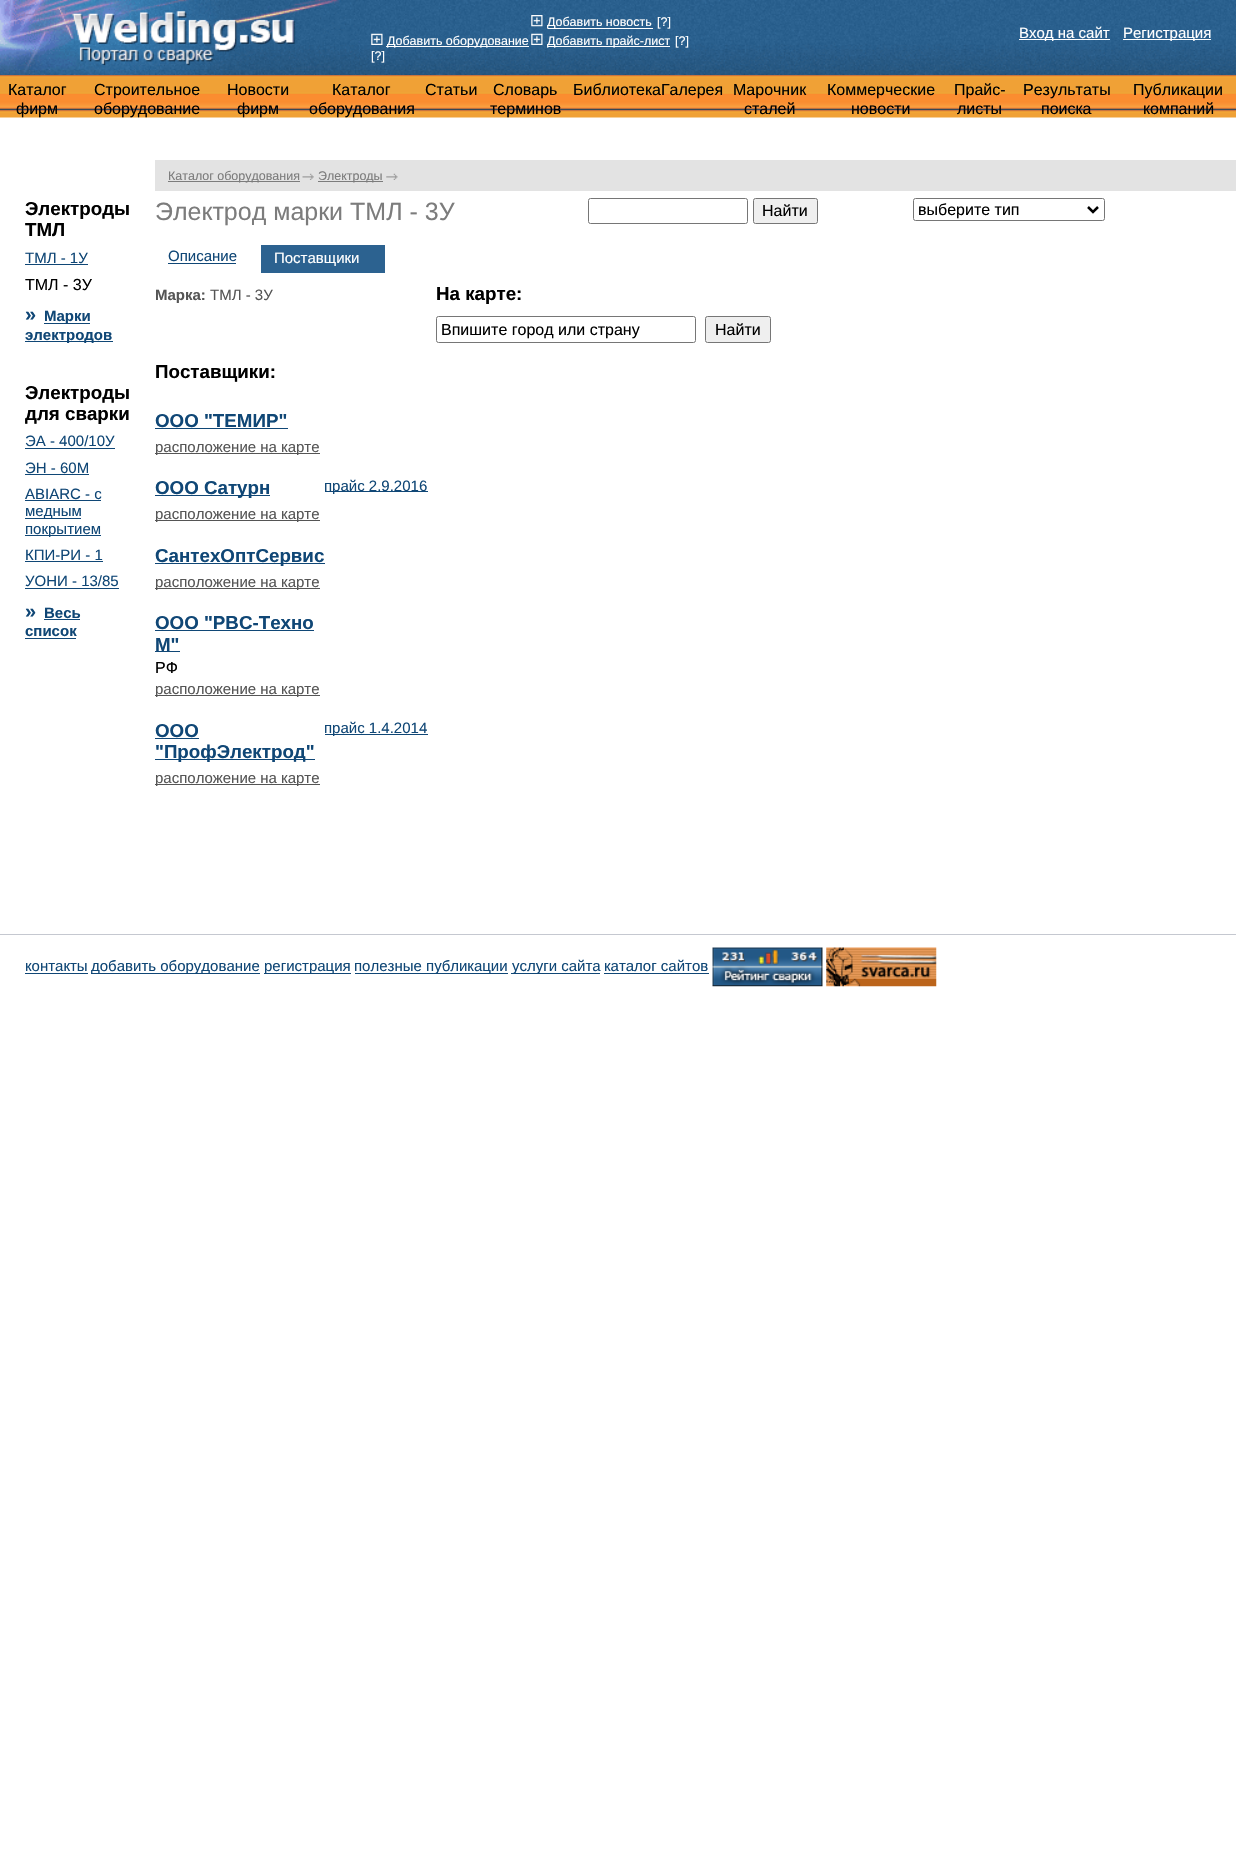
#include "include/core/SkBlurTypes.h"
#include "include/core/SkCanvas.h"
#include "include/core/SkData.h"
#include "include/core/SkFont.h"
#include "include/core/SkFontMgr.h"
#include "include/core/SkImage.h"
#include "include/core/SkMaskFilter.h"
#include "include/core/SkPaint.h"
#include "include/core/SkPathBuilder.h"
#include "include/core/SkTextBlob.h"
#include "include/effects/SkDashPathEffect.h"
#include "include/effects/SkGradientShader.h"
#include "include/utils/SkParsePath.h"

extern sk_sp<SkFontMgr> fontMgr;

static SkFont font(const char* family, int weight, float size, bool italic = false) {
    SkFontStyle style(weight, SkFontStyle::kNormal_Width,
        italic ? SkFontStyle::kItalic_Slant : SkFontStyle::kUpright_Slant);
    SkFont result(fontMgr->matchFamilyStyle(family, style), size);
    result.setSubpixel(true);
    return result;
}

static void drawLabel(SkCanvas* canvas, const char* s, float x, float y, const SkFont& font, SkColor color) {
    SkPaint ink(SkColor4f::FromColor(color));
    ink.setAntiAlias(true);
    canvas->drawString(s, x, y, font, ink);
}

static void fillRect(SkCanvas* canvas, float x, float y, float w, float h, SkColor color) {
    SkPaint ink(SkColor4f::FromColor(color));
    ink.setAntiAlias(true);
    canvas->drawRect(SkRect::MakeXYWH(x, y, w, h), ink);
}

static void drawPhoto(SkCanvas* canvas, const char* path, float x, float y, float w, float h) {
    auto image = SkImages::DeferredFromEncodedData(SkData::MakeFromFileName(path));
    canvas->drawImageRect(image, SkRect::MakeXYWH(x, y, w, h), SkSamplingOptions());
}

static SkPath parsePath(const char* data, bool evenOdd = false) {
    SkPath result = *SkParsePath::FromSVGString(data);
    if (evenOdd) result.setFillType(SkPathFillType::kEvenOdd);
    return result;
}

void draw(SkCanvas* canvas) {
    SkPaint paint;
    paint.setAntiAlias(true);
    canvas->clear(0xFFFFFFFF);
    drawPhoto(canvas, "assets/img1.png", 360, 0, 876, 75);
    drawPhoto(canvas, "assets/img2.png", 0, 0, 360, 75);
    drawPhoto(canvas, "assets/img3.png", 371, 33, 12, 12);
    fillRect(canvas, 386, 46, 143, 1, 0xFFFFFFFF);
    SkFont font1 = font("Liberation Sans", 400, 12.5f);
    drawLabel(canvas, "Добавить оборудование", 387, 45, font1, 0xFFFFFFFF);
    drawLabel(canvas, "[?]", 371, 60, font1, 0xFFFFFFFF);
    drawPhoto(canvas, "assets/img4.png", 531, 15, 12, 12);
    fillRect(canvas, 548, 28, 105, 1, 0xFFFFFFFF);
    drawLabel(canvas, "Добавить новость", 547, 26, font1, 0xFFFFFFFF);
    drawLabel(canvas, "[?]", 657, 26, font1, 0xFFFFFFFF);
    drawPhoto(canvas, "assets/img5.png", 531, 33, 12, 12);
    fillRect(canvas, 548, 46, 122, 1, 0xFFFFFFFF);
    drawLabel(canvas, "Добавить прайс-лист", 547, 45, font1, 0xFFFFFFFF);
    drawLabel(canvas, "[?]", 675, 45, font1, 0xFFFFFFFF);
    fillRect(canvas, 1019, 39, 91, 1, 0xFFFFFFFF);
    SkFont font2 = font("Liberation Sans", 400, 15);
    drawLabel(canvas, "Вход на сайт", 1019, 38, font2, 0xFFFFFFFF);
    fillRect(canvas, 1123, 39, 88, 1, 0xFFFFFFFF);
    drawLabel(canvas, "Регистрация", 1123, 38, font2, 0xFFFFFFFF);
    drawPhoto(canvas, "assets/img6.png", 0, 75, 1236, 43);
    SkFont font3 = font("Liberation Sans", 400, 16);
    drawLabel(canvas, "Каталог", 8, 95, font3, 0xFF000000);
    drawLabel(canvas, "фирм", 16, 114, font3, 0xFF000000);
    drawLabel(canvas, "Строительное", 94, 95, font3, 0xFF000000);
    drawLabel(canvas, "оборудование", 94, 114, font3, 0xFF000000);
    drawLabel(canvas, "Новости", 227, 95, font3, 0xFF000000);
    drawLabel(canvas, "фирм", 237, 114, font3, 0xFF000000);
    drawLabel(canvas, "Каталог", 332, 95, font3, 0xFF000000);
    drawLabel(canvas, "оборудования", 309, 114, font3, 0xFF000000);
    drawLabel(canvas, "Статьи", 425, 95, font3, 0xFF000000);
    drawLabel(canvas, "Словарь", 493, 95, font3, 0xFF000000);
    drawLabel(canvas, "терминов", 490, 114, font3, 0xFF000000);
    drawLabel(canvas, "БиблиотекаГалерея", 573, 95, font3, 0xFF000000);
    drawLabel(canvas, "Марочник", 733, 95, font3, 0xFF000000);
    drawLabel(canvas, "сталей", 744, 114, font3, 0xFF000000);
    drawLabel(canvas, "Коммерческие", 827, 95, font3, 0xFF000000);
    drawLabel(canvas, "новости", 851, 114, font3, 0xFF000000);
    drawLabel(canvas, "Прайс-", 954, 95, font3, 0xFF000000);
    drawLabel(canvas, "листы", 957, 114, font3, 0xFF000000);
    drawLabel(canvas, "Результаты", 1023, 95, font3, 0xFF000000);
    drawLabel(canvas, "поиска", 1041, 114, font3, 0xFF000000);
    drawLabel(canvas, "Публикации", 1133, 95, font3, 0xFF000000);
    drawLabel(canvas, "компаний", 1143, 114, font3, 0xFF000000);
    SkFont font4 = font("Liberation Sans", 700, 18.75f);
    drawLabel(canvas, "Электроды", 25, 215, font4, 0xFF000000);
    drawLabel(canvas, "ТМЛ", 25, 236, font4, 0xFF000000);
    drawLabel(canvas, "ТМЛ - 1У", 25, 263, font2, 0xFF104776);
    fillRect(canvas, 25, 264, 63, 1, 0xFF104776);
    drawLabel(canvas, "ТМЛ - 3У", 25, 290, font3, 0xFF000000);
    SkFont font5 = font("Liberation Sans", 700, 20);
    drawLabel(canvas, "»", 25, 321, font5, 0xFF104776);
    fillRect(canvas, 44, 323, 46, 1, 0xFF104776);
    SkFont font6 = font("Liberation Sans", 700, 15);
    drawLabel(canvas, "Марки", 44, 321, font6, 0xFF104776);
    fillRect(canvas, 25, 341, 88, 1, 0xFF104776);
    drawLabel(canvas, "электродов", 25, 340, font6, 0xFF104776);
    drawLabel(canvas, "Электроды", 25, 399, font4, 0xFF000000);
    drawLabel(canvas, "для сварки", 25, 420, font4, 0xFF000000);
    drawLabel(canvas, "ЭА - 400/10У", 25, 446, font2, 0xFF104776);
    fillRect(canvas, 25, 448, 90, 1, 0xFF104776);
    drawLabel(canvas, "ЭН - 60М", 25, 473, font2, 0xFF104776);
    fillRect(canvas, 25, 474, 64, 1, 0xFF104776);
    drawLabel(canvas, "ABIARC - с", 25, 499, font2, 0xFF104776);
    fillRect(canvas, 25, 500, 76, 1, 0xFF104776);
    fillRect(canvas, 25, 518, 56, 1, 0xFF104776);
    drawLabel(canvas, "медным", 25, 516, font2, 0xFF104776);
    fillRect(canvas, 25, 535, 76, 1, 0xFF104776);
    drawLabel(canvas, "покрытием", 25, 534, font2, 0xFF104776);
    drawLabel(canvas, "КПИ-РИ - 1", 25, 560, font2, 0xFF104776);
    fillRect(canvas, 25, 561, 78, 1, 0xFF104776);
    drawLabel(canvas, "УОНИ - 13/85", 25, 586, font2, 0xFF104776);
    fillRect(canvas, 25, 588, 94, 1, 0xFF104776);
    drawLabel(canvas, "»", 25, 618, font5, 0xFF104776);
    drawLabel(canvas, "Весь", 44, 618, font6, 0xFF104776);
    fillRect(canvas, 44, 619, 36, 1, 0xFF104776);
    drawLabel(canvas, "список", 25, 636, font6, 0xFF104776);
    fillRect(canvas, 25, 638, 51, 1, 0xFF104776);
    fillRect(canvas, 155, 160, 1081, 31, 0xFFE3E3E3);
    fillRect(canvas, 168, 181, 132, 1, 0xFF7C7C7C);
    drawLabel(canvas, "Каталог оборудования", 168, 180, font1, 0xFF7C7C7C);
    drawPhoto(canvas, "assets/img7.png", 302, 173, 12, 7);
    fillRect(canvas, 318, 181, 65, 1, 0xFF7C7C7C);
    drawLabel(canvas, "Электроды", 318, 180, font1, 0xFF7C7C7C);
    drawPhoto(canvas, "assets/img8.png", 386, 173, 12, 7);
    SkFont font7 = font("Liberation Sans", 400, 25);
    drawLabel(canvas, "Электрод марки ТМЛ - 3У", 155, 220, font7, 0xFF7C7C7C);
    paint.setStroke(true);
    paint.setStrokeWidth(1);
    paint.setColor(0xFF767676);
    canvas->drawRoundRect(SkRect::MakeXYWH(588.5f, 198.5f, 159, 25), 2, 2, paint);
    paint.setStroke(false);
    paint.setColor(0xFFEFEFEF);
    canvas->drawRoundRect(SkRect::MakeXYWH(753.5f, 198.5f, 64, 25), 2, 2, paint);
    paint.setStroke(true);
    paint.setColor(0xFF767676);
    canvas->drawRoundRect(SkRect::MakeXYWH(753.5f, 198.5f, 64, 25), 2, 2, paint);
    drawLabel(canvas, "Найти", 762, 216, font3, 0xFF000000);
    canvas->drawRoundRect(SkRect::MakeXYWH(913.5f, 198.5f, 191, 22), 2, 2, paint);
    paint.setStrokeWidth(2.5f);
    paint.setColor(0xFF000000);
    canvas->drawPath(parsePath("M1088 207L1093 212L1098 207"), paint);
    drawLabel(canvas, "выберите тип", 918, 215, font3, 0xFF000000);
    drawLabel(canvas, "Описание", 168, 261, font2, 0xFF104776);
    fillRect(canvas, 168, 263, 68, 1, 0xFF104776);
    fillRect(canvas, 261, 245, 124, 28, 0xFF2C6290);
    drawLabel(canvas, "Поставщики", 274, 263, font2, 0xFFFFFFFF);
    drawLabel(canvas, "Марка:", 155, 300, font6, 0xFF555555);
    drawLabel(canvas, "ТМЛ - 3У", 210, 300, font2, 0xFF555555);
    drawLabel(canvas, "Поставщики:", 155, 378, font4, 0xFF000000);
    drawLabel(canvas, "ООО \"ТЕМИР\"", 155, 427, font4, 0xFF104776);
    fillRect(canvas, 155, 428, 133, 1, 0xFF104776);
    fillRect(canvas, 155, 453, 165, 1, 0xFF555555);
    drawLabel(canvas, "расположение на карте", 155, 452, font2, 0xFF555555);
    fillRect(canvas, 155, 495, 115, 1, 0xFF104776);
    drawLabel(canvas, "ООО Сатурн", 155, 494, font4, 0xFF104776);
    fillRect(canvas, 155, 520, 165, 1, 0xFF555555);
    drawLabel(canvas, "расположение на карте", 155, 519, font2, 0xFF555555);
    fillRect(canvas, 325, 491, 103, 1, 0xFF104776);
    drawLabel(canvas, "прайс 2.9.2016", 324, 491, font2, 0xFF104776);
    fillRect(canvas, 155, 563, 170, 1, 0xFF104776);
    drawLabel(canvas, "СантехОптСервис", 155, 562, font4, 0xFF104776);
    fillRect(canvas, 155, 588, 165, 1, 0xFF555555);
    drawLabel(canvas, "расположение на карте", 155, 587, font2, 0xFF555555);
    drawLabel(canvas, "ООО \"РВС-Техно", 155, 629, font4, 0xFF104776);
    fillRect(canvas, 155, 630, 159, 1, 0xFF104776);
    drawLabel(canvas, "М\"", 155, 651, font4, 0xFF104776);
    fillRect(canvas, 155, 651, 25, 1, 0xFF104776);
    drawLabel(canvas, "РФ", 155, 673, font3, 0xFF000000);
    fillRect(canvas, 155, 695, 165, 1, 0xFF555555);
    drawLabel(canvas, "расположение на карте", 155, 694, font2, 0xFF555555);
    drawLabel(canvas, "ООО", 155, 737, font4, 0xFF104776);
    fillRect(canvas, 155, 738, 44, 1, 0xFF104776);
    fillRect(canvas, 155, 759, 160, 1, 0xFF104776);
    drawLabel(canvas, "\"ПрофЭлектрод\"", 155, 758, font4, 0xFF104776);
    fillRect(canvas, 155, 784, 165, 1, 0xFF555555);
    drawLabel(canvas, "расположение на карте", 155, 783, font2, 0xFF555555);
    fillRect(canvas, 325, 734, 103, 1, 0xFF104776);
    drawLabel(canvas, "прайс 1.4.2014", 324, 733, font2, 0xFF104776);
    drawLabel(canvas, "На карте:", 436, 300, font4, 0xFF000000);
    paint.setStrokeWidth(1);
    paint.setColor(0xFF767676);
    canvas->drawRoundRect(SkRect::MakeXYWH(436.5f, 316.5f, 259, 26), 2, 2, paint);
    drawLabel(canvas, "Впишите город или страну", 441, 335, font3, 0xFF000000);
    paint.setStroke(false);
    paint.setColor(0xFFEFEFEF);
    canvas->drawRoundRect(SkRect::MakeXYWH(705.5f, 316.5f, 65, 26), 2, 2, paint);
    paint.setStroke(true);
    paint.setColor(0xFF767676);
    canvas->drawRoundRect(SkRect::MakeXYWH(705.5f, 316.5f, 65, 26), 2, 2, paint);
    drawLabel(canvas, "Найти", 715, 335, font3, 0xFF000000);
    fillRect(canvas, 0, 934, 1236, 1, 0xFFC5C8D0);
    drawLabel(canvas, "контакты", 25, 971, font2, 0xFF104776);
    fillRect(canvas, 25, 973, 63, 1, 0xFF104776);
    fillRect(canvas, 91, 973, 169, 1, 0xFF104776);
    drawLabel(canvas, "добавить оборудование", 91, 971, font2, 0xFF104776);
    fillRect(canvas, 264, 973, 87, 1, 0xFF104776);
    drawLabel(canvas, "регистрация", 264, 971, font2, 0xFF104776);
    fillRect(canvas, 355, 973, 153, 1, 0xFF104776);
    drawLabel(canvas, "полезные публикации", 354, 971, font2, 0xFF104776);
    fillRect(canvas, 511, 973, 89, 1, 0xFF104776);
    drawLabel(canvas, "услуги сайта", 512, 971, font2, 0xFF104776);
    drawLabel(canvas, "каталог сайтов", 604, 971, font2, 0xFF104776);
    fillRect(canvas, 604, 973, 105, 1, 0xFF104776);
    drawPhoto(canvas, "assets/img9.png", 712, 947, 111, 40);
    drawPhoto(canvas, "assets/img10.png", 826, 947, 111, 40);
}
